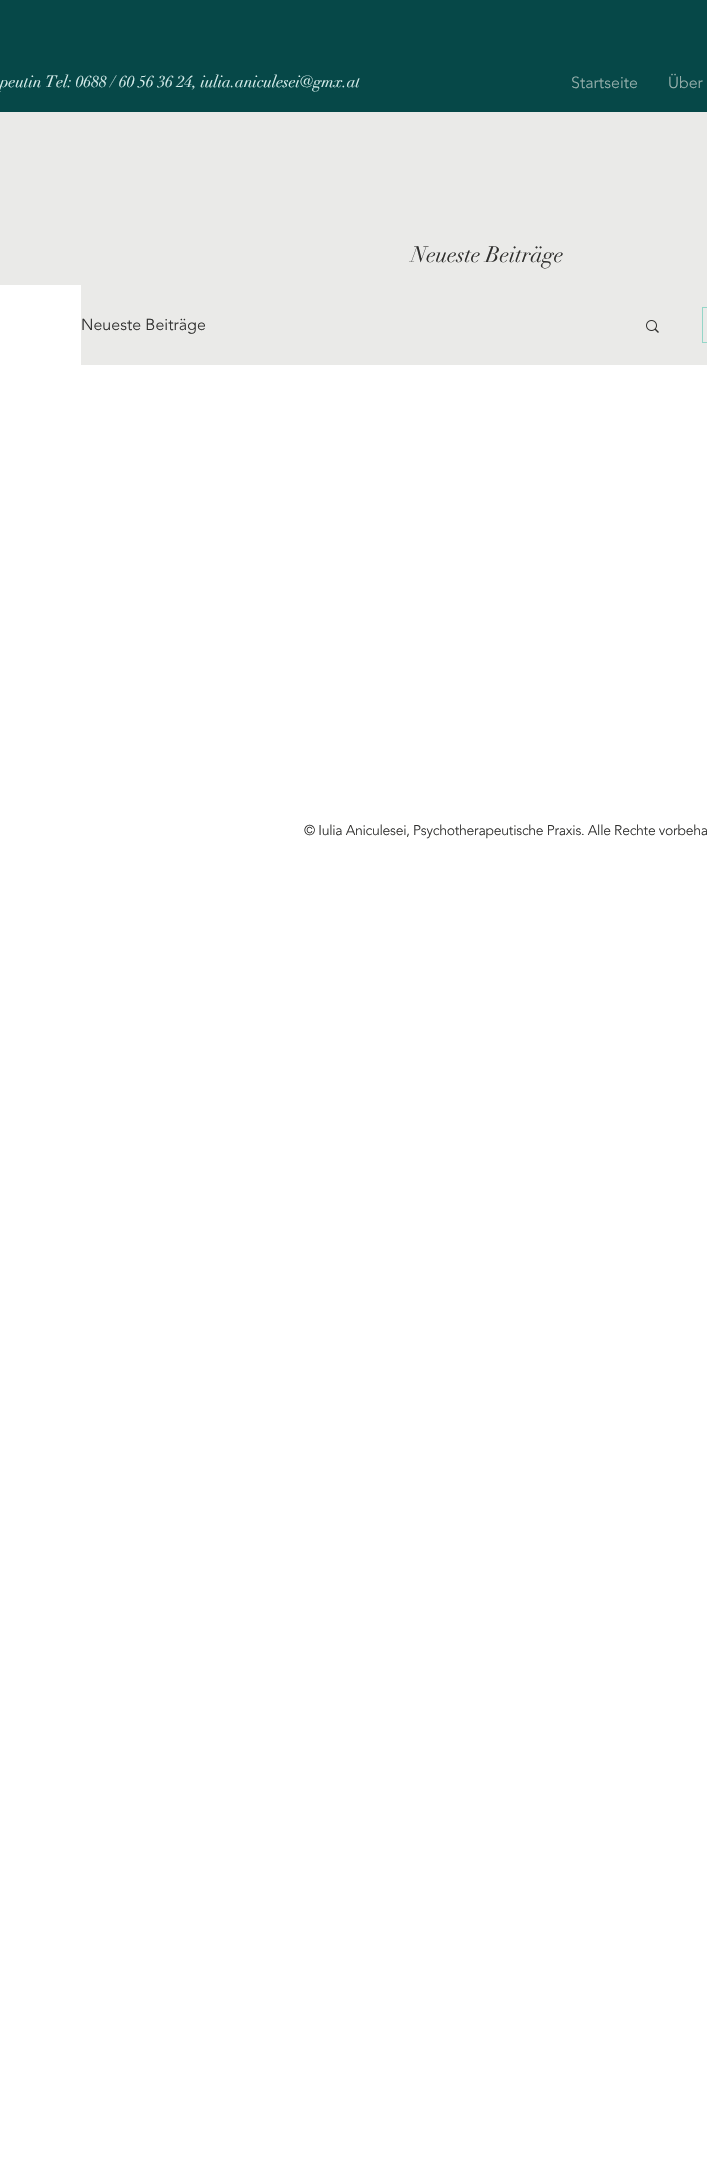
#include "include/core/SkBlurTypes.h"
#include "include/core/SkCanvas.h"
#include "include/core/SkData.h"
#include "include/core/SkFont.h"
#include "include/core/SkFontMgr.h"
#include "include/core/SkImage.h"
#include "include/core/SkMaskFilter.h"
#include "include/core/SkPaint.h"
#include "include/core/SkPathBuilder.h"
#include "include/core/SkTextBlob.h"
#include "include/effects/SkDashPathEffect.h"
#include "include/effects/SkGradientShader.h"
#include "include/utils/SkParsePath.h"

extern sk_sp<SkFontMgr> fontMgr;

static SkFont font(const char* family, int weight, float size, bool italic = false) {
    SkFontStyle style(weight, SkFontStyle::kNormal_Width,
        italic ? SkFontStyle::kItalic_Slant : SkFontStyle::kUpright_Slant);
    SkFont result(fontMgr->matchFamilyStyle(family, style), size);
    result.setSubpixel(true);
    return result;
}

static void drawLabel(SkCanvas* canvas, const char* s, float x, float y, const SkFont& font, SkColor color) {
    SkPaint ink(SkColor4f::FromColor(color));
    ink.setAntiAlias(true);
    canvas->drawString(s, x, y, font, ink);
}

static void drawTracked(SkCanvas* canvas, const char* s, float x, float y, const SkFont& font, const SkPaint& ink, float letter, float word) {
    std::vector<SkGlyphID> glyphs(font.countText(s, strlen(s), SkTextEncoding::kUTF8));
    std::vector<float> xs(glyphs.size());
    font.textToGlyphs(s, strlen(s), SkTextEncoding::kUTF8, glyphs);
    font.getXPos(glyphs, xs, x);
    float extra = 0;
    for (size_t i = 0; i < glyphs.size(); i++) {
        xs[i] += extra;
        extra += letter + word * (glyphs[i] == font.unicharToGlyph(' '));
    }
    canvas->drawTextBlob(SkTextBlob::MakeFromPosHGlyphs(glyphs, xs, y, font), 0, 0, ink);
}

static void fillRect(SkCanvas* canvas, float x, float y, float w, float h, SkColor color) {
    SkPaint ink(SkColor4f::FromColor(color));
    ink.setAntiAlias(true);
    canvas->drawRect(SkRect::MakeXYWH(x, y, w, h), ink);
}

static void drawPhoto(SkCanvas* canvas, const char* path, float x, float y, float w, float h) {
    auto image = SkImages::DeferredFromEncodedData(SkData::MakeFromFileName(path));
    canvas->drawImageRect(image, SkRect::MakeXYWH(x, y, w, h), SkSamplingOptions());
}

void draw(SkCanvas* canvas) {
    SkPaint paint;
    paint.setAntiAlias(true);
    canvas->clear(0xFFFFFFFF);
    fillRect(canvas, 0, 0, 707, 112, 0xFF064848);
    SkFont font1 = font("didot", 400, 16);
    drawLabel(canvas, "peutin Tel: 0688 / 60 56 36 24, iulia.aniculesei@gmx.at", 0, 87, font1, 0xFFD8EFED);
    SkFont font2 = font("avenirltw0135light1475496", 300, 16);
    drawLabel(canvas, "Startseite", 571, 88, font2, 0xFF99B2AE);
    drawLabel(canvas, "Über", 668, 88, font2, 0xFF99B2AE);
    fillRect(canvas, 0, 112, 707, 173, 0xFFEAEAE8);
    SkFont font3 = font("didot", 400, 22);
    drawLabel(canvas, "Neueste Beiträge", 411, 262, font3, 0xFF2F2F2E);
    fillRect(canvas, 81, 285, 626, 80, 0xFFEAEAE8);
    drawLabel(canvas, "Neueste Beiträge", 81, 330, font2, 0xFF2F2F2E);
    drawPhoto(canvas, "assets/img1.png", 646, 320, 13, 13);
    paint.setStroke(true);
    paint.setStrokeWidth(1);
    paint.setColor(0xFF94D6C8);
    canvas->drawRect(SkRect::MakeXYWH(702.5f, 307.5f, 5, 35), paint);
    SkFont font4 = font("avenirltw0135light1475496", 300, 14);
    paint.setStroke(false);
    paint.setColor(0xFF2F2F2E);
    drawTracked(canvas, "© Iulia Aniculesei, Psychotherapeutische Praxis. Alle Rechte vorbeha", 304, 835, font4, paint, -0.28f, 0);
}
